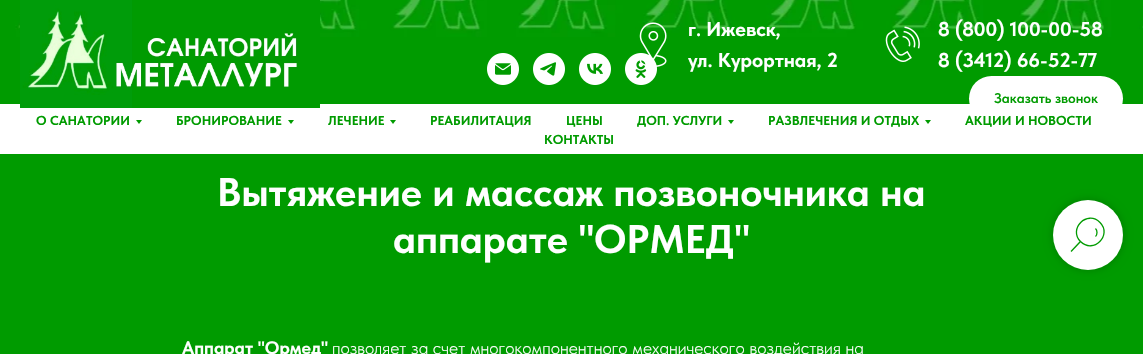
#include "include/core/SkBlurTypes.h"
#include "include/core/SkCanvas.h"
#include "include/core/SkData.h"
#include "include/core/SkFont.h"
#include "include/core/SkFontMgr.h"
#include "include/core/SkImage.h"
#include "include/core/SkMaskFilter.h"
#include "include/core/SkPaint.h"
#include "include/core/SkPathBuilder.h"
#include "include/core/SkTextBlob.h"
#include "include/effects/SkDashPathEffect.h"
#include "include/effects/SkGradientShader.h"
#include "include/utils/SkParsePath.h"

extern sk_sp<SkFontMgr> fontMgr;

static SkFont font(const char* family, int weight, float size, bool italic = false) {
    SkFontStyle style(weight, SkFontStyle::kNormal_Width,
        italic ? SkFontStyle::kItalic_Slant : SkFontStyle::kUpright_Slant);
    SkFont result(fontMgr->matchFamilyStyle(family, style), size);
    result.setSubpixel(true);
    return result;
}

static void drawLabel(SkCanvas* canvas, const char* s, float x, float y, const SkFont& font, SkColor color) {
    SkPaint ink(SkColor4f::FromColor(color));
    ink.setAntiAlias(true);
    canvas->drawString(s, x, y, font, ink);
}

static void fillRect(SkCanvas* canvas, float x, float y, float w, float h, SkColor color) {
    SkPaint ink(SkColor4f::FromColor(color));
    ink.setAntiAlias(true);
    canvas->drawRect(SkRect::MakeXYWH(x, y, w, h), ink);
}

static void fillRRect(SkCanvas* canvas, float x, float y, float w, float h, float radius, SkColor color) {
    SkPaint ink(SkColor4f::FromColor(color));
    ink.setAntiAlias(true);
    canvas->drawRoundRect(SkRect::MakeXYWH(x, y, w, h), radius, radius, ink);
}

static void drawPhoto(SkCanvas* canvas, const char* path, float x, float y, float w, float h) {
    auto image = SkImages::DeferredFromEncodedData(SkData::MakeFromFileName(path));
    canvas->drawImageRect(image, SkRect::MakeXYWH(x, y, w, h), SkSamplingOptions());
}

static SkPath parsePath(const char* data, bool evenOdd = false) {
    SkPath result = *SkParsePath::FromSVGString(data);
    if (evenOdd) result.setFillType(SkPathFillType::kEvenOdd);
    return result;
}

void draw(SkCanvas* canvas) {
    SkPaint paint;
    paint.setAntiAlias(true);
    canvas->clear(0xFFFFFFFF);
    drawPhoto(canvas, "assets/img1.png", 0, 0, 1143, 53);
    fillRect(canvas, 0, 53, 1143, 51, 0xFF009B00);
    drawPhoto(canvas, "assets/img2.png", 20, 0, 300, 108);
    drawPhoto(canvas, "assets/img8.png", 625, 53, 32, 32);
    drawPhoto(canvas, "assets/img3.png", 639, 22, 28, 45);
    SkFont font1 = font("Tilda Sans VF", 700, 20);
    drawLabel(canvas, "г. Ижевск,", 688, 36, font1, 0xFFFFFFFF);
    drawLabel(canvas, "ул. Курортная, 2", 688, 67, font1, 0xFFFFFFFF);
    drawPhoto(canvas, "assets/img4.png", 885, 26, 35, 36);
    drawLabel(canvas, "8 (800) 100-00-58", 938, 36, font1, 0xFFFFFFFF);
    drawLabel(canvas, "8 (3412) 66-52-77", 938, 67, font1, 0xFFFFFFFF);
    fillRRect(canvas, 969, 76, 154, 45, 22.5f, 0xFFFFFFFF);
    SkFont font2 = font("Tilda Sans VF", 600, 14);
    drawLabel(canvas, "Заказать звонок", 994, 103, font2, 0xFF009B00);
    drawPhoto(canvas, "assets/img5.png", 487, 53, 32, 32);
    drawPhoto(canvas, "assets/img6.png", 533, 53, 32, 32);
    drawPhoto(canvas, "assets/img7.png", 579, 53, 32, 32);
    SkFont font3 = font("Tilda Sans VF", 700, 13);
    drawLabel(canvas, "О САНАТОРИИ", 36, 125, font3, 0xFF009B00);
    paint.setColor(0xFF009B00);
    canvas->drawPath(parsePath("M136 120H142L139 124Z"), paint);
    drawLabel(canvas, "БРОНИРОВАНИЕ", 176, 125, font3, 0xFF009B00);
    canvas->drawPath(parsePath("M288 120H294L291 124Z"), paint);
    drawLabel(canvas, "ЛЕЧЕНИЕ", 328, 125, font3, 0xFF009B00);
    canvas->drawPath(parsePath("M390 120H396L393 124Z"), paint);
    drawLabel(canvas, "РЕАБИЛИТАЦИЯ", 430, 125, font3, 0xFF009B00);
    drawLabel(canvas, "ЦЕНЫ", 566, 125, font3, 0xFF009B00);
    drawLabel(canvas, "ДОП. УСЛУГИ", 637, 125, font3, 0xFF009B00);
    canvas->drawPath(parsePath("M728 120H734L731 124Z"), paint);
    drawLabel(canvas, "РАЗВЛЕЧЕНИЯ И ОТДЫХ", 768, 125, font3, 0xFF009B00);
    canvas->drawPath(parsePath("M925 120H931L928 124Z"), paint);
    drawLabel(canvas, "АКЦИИ И НОВОСТИ", 965, 125, font3, 0xFF009B00);
    drawLabel(canvas, "КОНТАКТЫ", 544, 144, font3, 0xFF009B00);
    fillRect(canvas, 0, 154, 1143, 200, 0xFF009B00);
    paint.setColor(0x33000000);
    paint.setMaskFilter(SkMaskFilter::MakeBlur(kNormal_SkBlurStyle, 5));
    canvas->drawRoundRect(SkRect::MakeXYWH(1053, 200, 70, 70), 35, 35, paint);
    paint.setMaskFilter(nullptr);
    paint.setColor(0xFFFFFFFF);
    canvas->drawCircle(1088, 235, 35, paint);
    paint.setStroke(true);
    paint.setStrokeWidth(1.3f);
    paint.setStrokeCap(SkPaint::kSquare_Cap);
    paint.setColor(0xFF009B00);
    canvas->drawPath(parsePath("M1080 242L1071.5 251"), paint);
    paint.setStrokeCap(SkPaint::kButt_Cap);
    canvas->drawPath(parsePath("M1100 222.5C1112.5 235 1093.5 254.5 1080.5 241.5C1068 229 1087 209.5 1100 222.5ZM1095.5 228.5C1097.5 230.5 1097.5 234.5 1095.5 236.5"), paint);
    SkFont font4 = font("Tilda Sans VF", 700, 40);
    drawLabel(canvas, "Вытяжение и массаж позвоночника на", 217, 206, font4, 0xFFFFFFFF);
    drawLabel(canvas, "аппарате \"ОРМЕД\"", 393, 253, font4, 0xFFFFFFFF);
    SkFont font5 = font("Tilda Sans VF", 700, 18);
    drawLabel(canvas, "Аппарат \"Ормед\"", 182, 354, font5, 0xFFFFFFFF);
    SkFont font6 = font("Tilda Sans VF", 300, 18);
    drawLabel(canvas, "позволяет за счет многокомпонентного механического воздействия на", 332, 354, font6, 0xFFFFFFFF);
}
